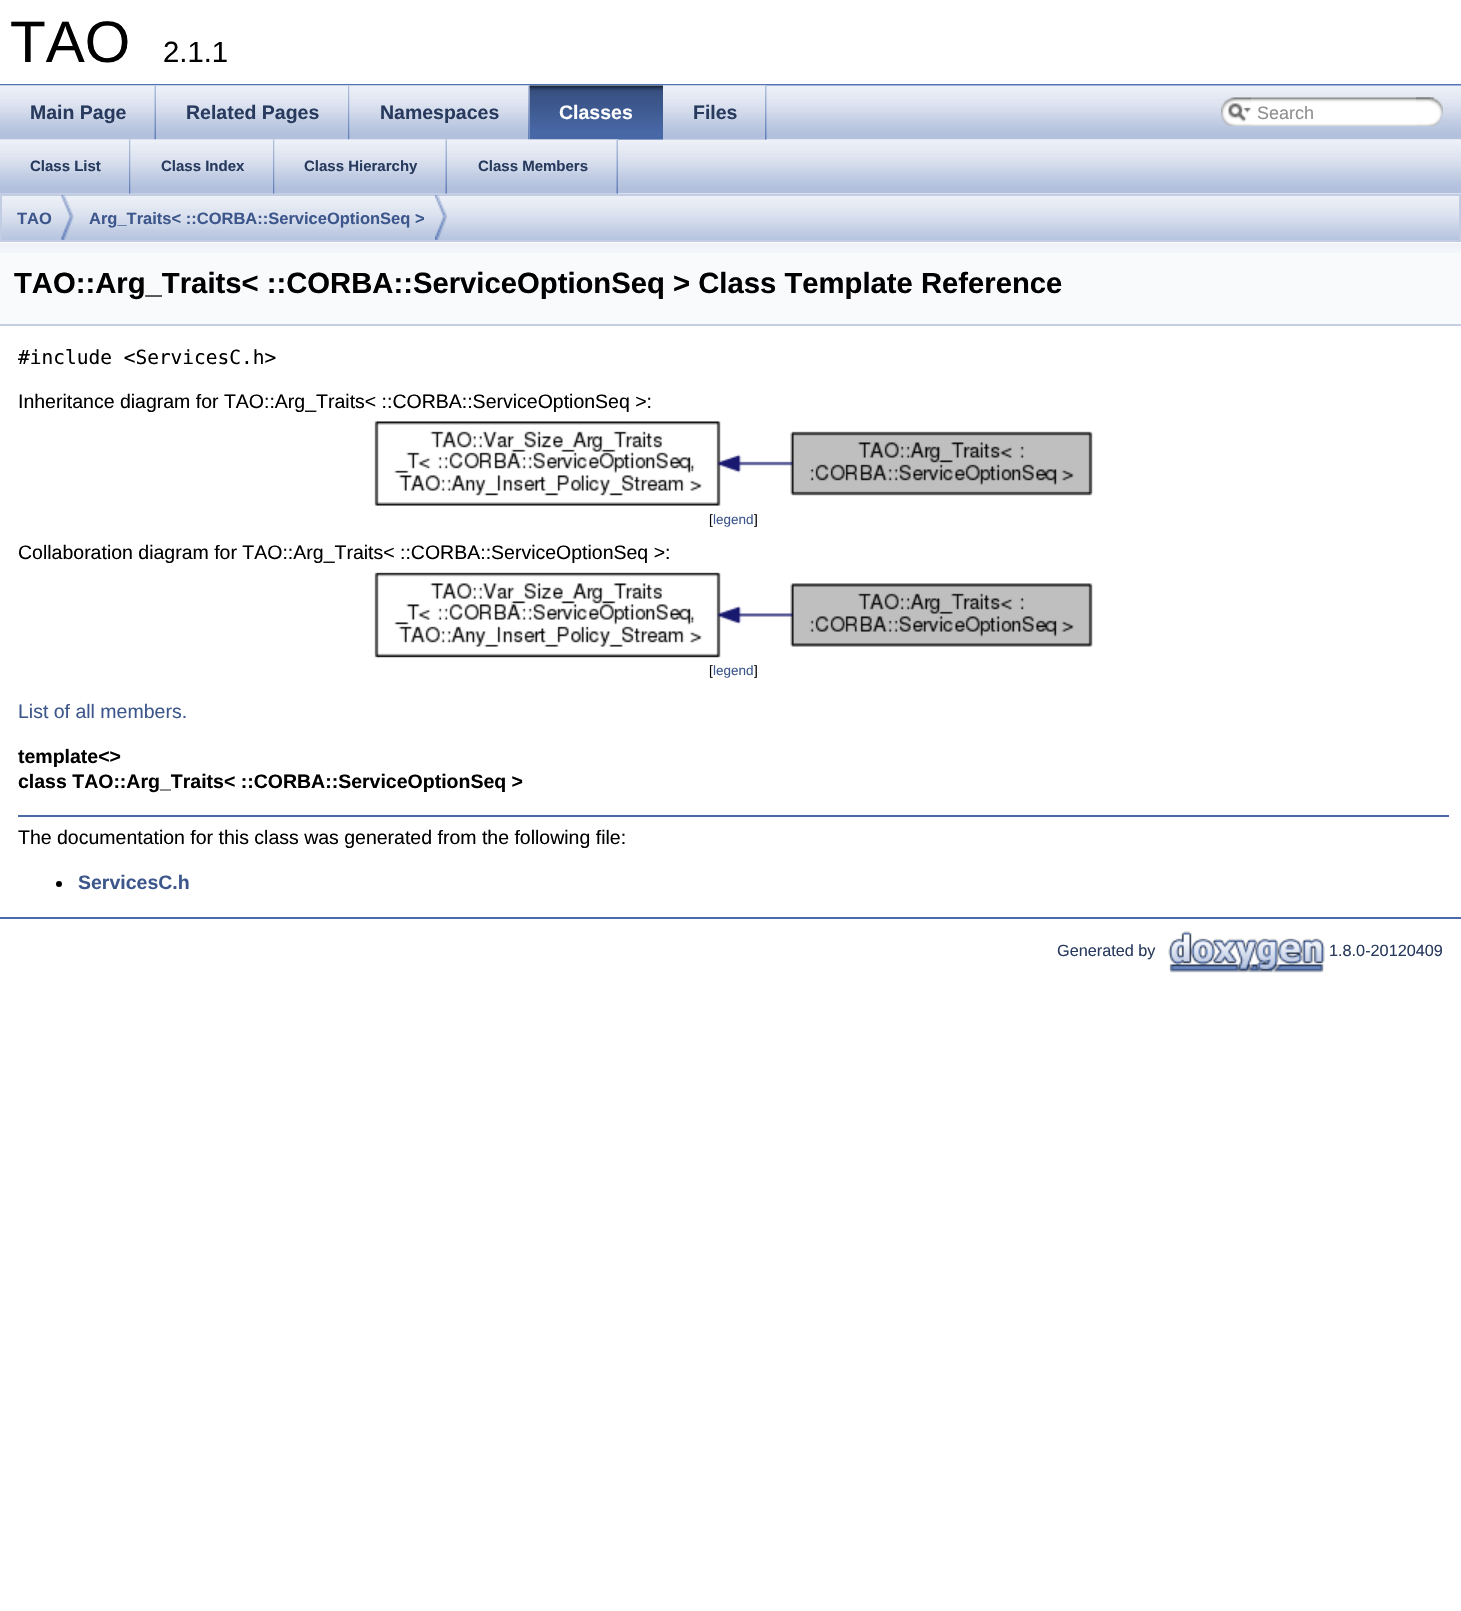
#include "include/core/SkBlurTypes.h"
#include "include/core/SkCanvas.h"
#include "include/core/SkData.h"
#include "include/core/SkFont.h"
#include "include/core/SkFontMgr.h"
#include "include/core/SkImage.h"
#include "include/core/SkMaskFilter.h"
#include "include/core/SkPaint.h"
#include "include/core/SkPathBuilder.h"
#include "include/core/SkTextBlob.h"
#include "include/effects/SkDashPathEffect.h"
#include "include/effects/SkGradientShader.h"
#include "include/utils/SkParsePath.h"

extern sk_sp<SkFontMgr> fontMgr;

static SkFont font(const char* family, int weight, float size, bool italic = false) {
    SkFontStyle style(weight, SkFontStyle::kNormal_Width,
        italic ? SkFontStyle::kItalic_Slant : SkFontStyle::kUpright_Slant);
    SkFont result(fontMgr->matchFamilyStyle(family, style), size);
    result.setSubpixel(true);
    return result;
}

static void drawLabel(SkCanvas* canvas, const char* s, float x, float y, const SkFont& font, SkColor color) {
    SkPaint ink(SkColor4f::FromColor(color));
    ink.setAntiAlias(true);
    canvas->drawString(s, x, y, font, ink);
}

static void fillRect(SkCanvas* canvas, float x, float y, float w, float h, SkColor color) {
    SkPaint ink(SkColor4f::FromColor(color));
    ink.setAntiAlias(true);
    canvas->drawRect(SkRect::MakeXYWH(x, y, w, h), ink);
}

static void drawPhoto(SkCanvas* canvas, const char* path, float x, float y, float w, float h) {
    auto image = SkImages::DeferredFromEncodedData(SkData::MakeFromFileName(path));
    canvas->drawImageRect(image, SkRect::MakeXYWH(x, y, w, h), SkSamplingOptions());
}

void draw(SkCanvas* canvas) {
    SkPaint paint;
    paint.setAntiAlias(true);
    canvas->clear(0xFFFFFFFF);
    fillRect(canvas, 0, 84, 1461, 2, 0xFF5373B4);
    SkFont font1 = font("Liberation Sans", 400, 58.5f);
    drawLabel(canvas, "TAO", 10, 62, font1, 0xFF000000);
    SkFont font2 = font("Liberation Sans", 400, 29.25f);
    drawLabel(canvas, "2.1.1", 163, 62, font2, 0xFF000000);
    drawPhoto(canvas, "assets/img1.png", 0, 85, 1461, 55);
    drawPhoto(canvas, "assets/img14.png", 0, 139, 1461, 55);
    drawPhoto(canvas, "assets/img2.png", 0, 85, 156, 55);
    drawPhoto(canvas, "assets/img3.png", 154, 85, 2, 55);
    SkFont font3 = font("Liberation Sans", 700, 19.5f);
    drawLabel(canvas, "Main Page", 30, 119, font3, 0xFF283A5D);
    drawPhoto(canvas, "assets/img4.png", 156, 85, 194, 55);
    drawPhoto(canvas, "assets/img5.png", 348, 85, 2, 55);
    drawLabel(canvas, "Related Pages", 186, 119, font3, 0xFF283A5D);
    drawPhoto(canvas, "assets/img6.png", 349, 85, 181, 55);
    drawPhoto(canvas, "assets/img5.png", 528, 85, 2, 55);
    drawLabel(canvas, "Namespaces", 380, 119, font3, 0xFF283A5D);
    drawPhoto(canvas, "assets/img7.png", 529, 85, 134, 55);
    drawPhoto(canvas, "assets/img8.png", 529, 85, 134, 55);
    drawLabel(canvas, "Classes", 559, 119, font3, 0xFFFFFFFF);
    drawPhoto(canvas, "assets/img9.png", 663, 85, 104, 55);
    drawPhoto(canvas, "assets/img5.png", 765, 85, 2, 55);
    drawLabel(canvas, "Files", 693, 119, font3, 0xFF283A5D);
    drawPhoto(canvas, "assets/img10.png", 1221, 97, 30, 29);
    drawPhoto(canvas, "assets/img11.png", 1228, 103, 23, 19);
    drawPhoto(canvas, "assets/img12.png", 1251, 97, 183, 29);
    SkFont font4 = font("Liberation Sans", 400, 18);
    drawLabel(canvas, "Search", 1257, 119, font4, 0xFF909090);
    drawPhoto(canvas, "assets/img13.png", 1416, 97, 27, 29);
    drawPhoto(canvas, "assets/img15.png", 0, 139, 131, 55);
    drawPhoto(canvas, "assets/img16.png", 129, 139, 2, 55);
    SkFont font5 = font("Liberation Sans", 700, 15);
    drawLabel(canvas, "Class List", 30, 171, font5, 0xFF283A5D);
    drawPhoto(canvas, "assets/img17.png", 130, 139, 145, 55);
    drawPhoto(canvas, "assets/img16.png", 273, 139, 2, 55);
    drawLabel(canvas, "Class Index", 161, 171, font5, 0xFF283A5D);
    drawPhoto(canvas, "assets/img18.png", 274, 139, 173, 55);
    drawPhoto(canvas, "assets/img19.png", 445, 139, 2, 55);
    drawLabel(canvas, "Class Hierarchy", 304, 171, font5, 0xFF283A5D);
    drawPhoto(canvas, "assets/img20.png", 447, 139, 171, 55);
    drawPhoto(canvas, "assets/img21.png", 616, 139, 2, 55);
    drawLabel(canvas, "Class Members", 478, 171, font5, 0xFF283A5D);
    drawPhoto(canvas, "assets/img22.png", 2, 196, 1457, 44);
    paint.setStroke(true);
    paint.setStrokeWidth(2);
    paint.setColor(0xFFC2CDE4);
    canvas->drawRect(SkRect::MakeXYWH(1, 195, 1459, 46), paint);
    drawPhoto(canvas, "assets/img23.png", 61, 195, 13, 45);
    SkFont font6 = font("Liberation Sans", 700, 16.5f);
    drawLabel(canvas, "TAO", 17, 224, font6, 0xFF3D578C);
    drawPhoto(canvas, "assets/img24.png", 435, 195, 12, 45);
    drawLabel(canvas, "Arg_Traits< ::CORBA::ServiceOptionSeq >", 89, 224, font6, 0xFF3D578C);
    fillRect(canvas, 0, 242, 1461, 82, 0xFFF9FAFC);
    drawPhoto(canvas, "assets/img25.png", 0, 243, 1461, 10);
    fillRect(canvas, 0, 324, 1461, 2, 0xFFC4CFE5);
    SkFont font7 = font("Liberation Sans", 700, 29.25f);
    drawLabel(canvas, "TAO::Arg_Traits< ::CORBA::ServiceOptionSeq > Class Template Reference", 14, 293, font7, 0xFF000000);
    SkFont font8 = font("DejaVu Sans Mono", 400, 19.5f);
    drawLabel(canvas, "#include <ServicesC.h>", 18, 364, font8, 0xFF000000);
    SkFont font9 = font("Liberation Sans", 400, 19.5f);
    drawLabel(canvas, "Inheritance diagram for TAO::Arg_Traits< ::CORBA::ServiceOptionSeq >:", 18, 408, font9, 0xFF000000);
    drawPhoto(canvas, "assets/img26.png", 374, 421, 719, 85);
    SkFont font10 = font("Liberation Sans", 400, 13.5f);
    drawLabel(canvas, "[", 709, 524, font10, 0xFF000000);
    drawLabel(canvas, "legend", 713, 524, font10, 0xFF3D578C);
    drawLabel(canvas, "]", 754, 524, font10, 0xFF000000);
    drawLabel(canvas, "Collaboration diagram for TAO::Arg_Traits< ::CORBA::ServiceOptionSeq >:", 18, 559, font9, 0xFF000000);
    drawPhoto(canvas, "assets/img27.png", 374, 572, 719, 86);
    drawLabel(canvas, "[", 709, 675, font10, 0xFF000000);
    drawLabel(canvas, "legend", 713, 675, font10, 0xFF3D578C);
    drawLabel(canvas, "]", 754, 675, font10, 0xFF000000);
    drawLabel(canvas, "List of all members.", 18, 718, font9, 0xFF3D578C);
    drawLabel(canvas, "template<>", 18, 763, font3, 0xFF000000);
    drawLabel(canvas, "class TAO::Arg_Traits< ::CORBA::ServiceOptionSeq >", 18, 788, font3, 0xFF000000);
    fillRect(canvas, 18, 815, 1431, 2, 0xFF4A6AAA);
    drawLabel(canvas, "The documentation for this class was generated from the following file:", 18, 844, font9, 0xFF000000);
    paint.setStroke(false);
    paint.setColor(0xFF000000);
    canvas->drawCircle(59, 884, 3, paint);
    drawLabel(canvas, "ServicesC.h", 78, 889, font3, 0xFF3D578C);
    fillRect(canvas, 0, 917, 1461, 2, 0xFF4A6AAA);
    SkFont font11 = font("Liberation Sans", 400, 16.25f);
    drawLabel(canvas, "Generated by", 1057, 956, font11, 0xFF283A5D);
    drawPhoto(canvas, "assets/img28.png", 1168, 931, 157, 42);
    drawLabel(canvas, "1.8.0-20120409", 1329, 956, font11, 0xFF283A5D);
}
